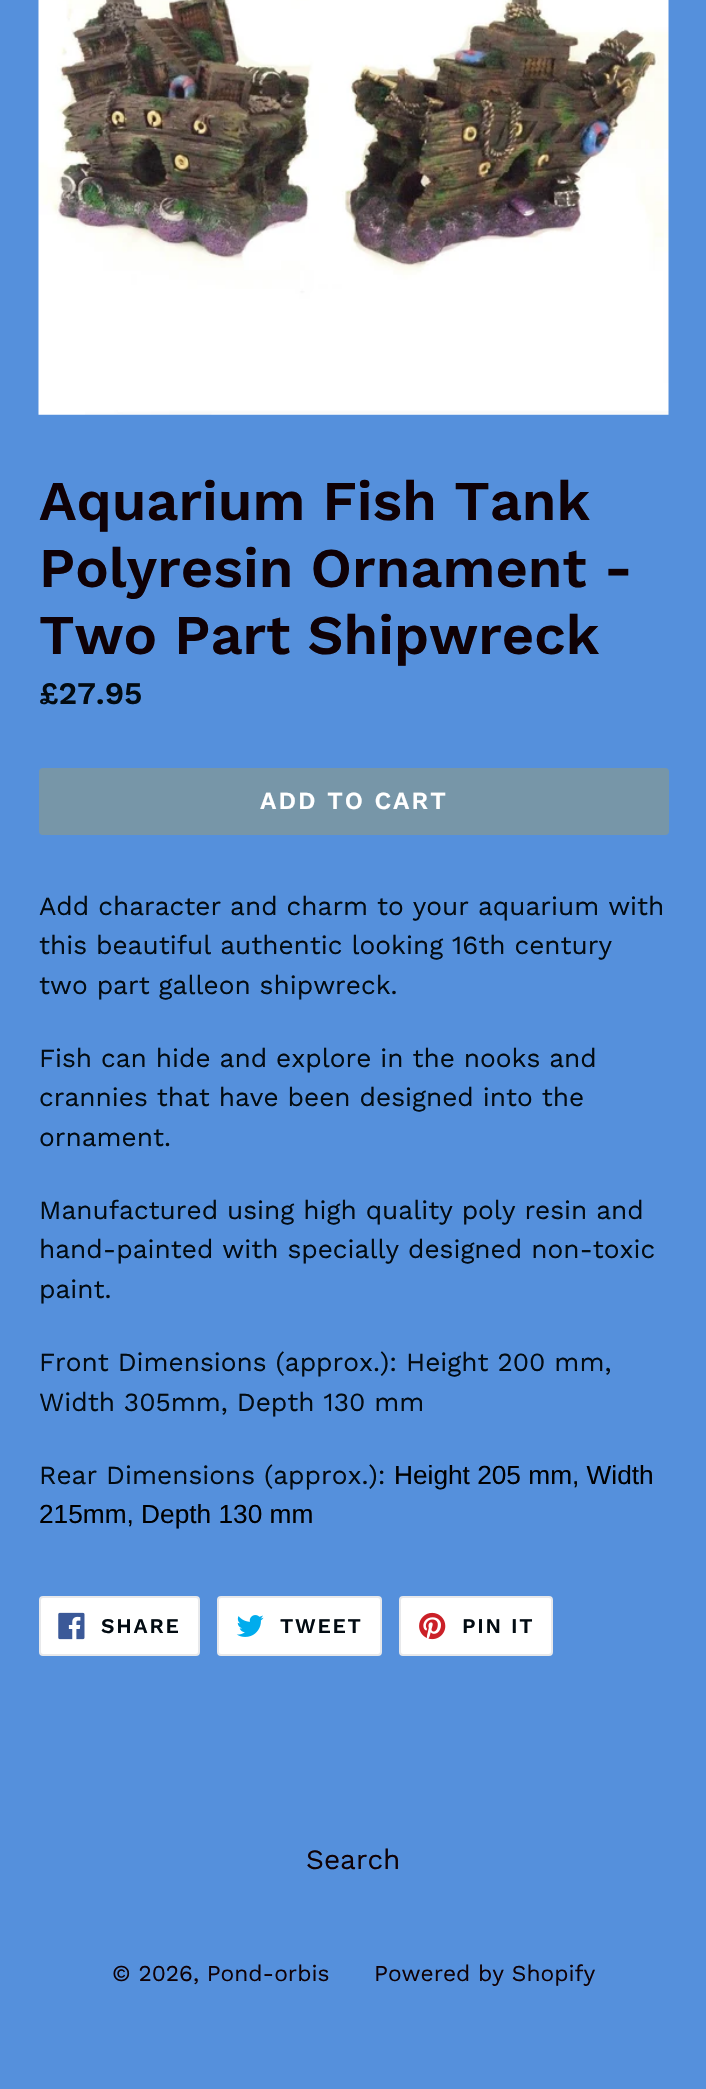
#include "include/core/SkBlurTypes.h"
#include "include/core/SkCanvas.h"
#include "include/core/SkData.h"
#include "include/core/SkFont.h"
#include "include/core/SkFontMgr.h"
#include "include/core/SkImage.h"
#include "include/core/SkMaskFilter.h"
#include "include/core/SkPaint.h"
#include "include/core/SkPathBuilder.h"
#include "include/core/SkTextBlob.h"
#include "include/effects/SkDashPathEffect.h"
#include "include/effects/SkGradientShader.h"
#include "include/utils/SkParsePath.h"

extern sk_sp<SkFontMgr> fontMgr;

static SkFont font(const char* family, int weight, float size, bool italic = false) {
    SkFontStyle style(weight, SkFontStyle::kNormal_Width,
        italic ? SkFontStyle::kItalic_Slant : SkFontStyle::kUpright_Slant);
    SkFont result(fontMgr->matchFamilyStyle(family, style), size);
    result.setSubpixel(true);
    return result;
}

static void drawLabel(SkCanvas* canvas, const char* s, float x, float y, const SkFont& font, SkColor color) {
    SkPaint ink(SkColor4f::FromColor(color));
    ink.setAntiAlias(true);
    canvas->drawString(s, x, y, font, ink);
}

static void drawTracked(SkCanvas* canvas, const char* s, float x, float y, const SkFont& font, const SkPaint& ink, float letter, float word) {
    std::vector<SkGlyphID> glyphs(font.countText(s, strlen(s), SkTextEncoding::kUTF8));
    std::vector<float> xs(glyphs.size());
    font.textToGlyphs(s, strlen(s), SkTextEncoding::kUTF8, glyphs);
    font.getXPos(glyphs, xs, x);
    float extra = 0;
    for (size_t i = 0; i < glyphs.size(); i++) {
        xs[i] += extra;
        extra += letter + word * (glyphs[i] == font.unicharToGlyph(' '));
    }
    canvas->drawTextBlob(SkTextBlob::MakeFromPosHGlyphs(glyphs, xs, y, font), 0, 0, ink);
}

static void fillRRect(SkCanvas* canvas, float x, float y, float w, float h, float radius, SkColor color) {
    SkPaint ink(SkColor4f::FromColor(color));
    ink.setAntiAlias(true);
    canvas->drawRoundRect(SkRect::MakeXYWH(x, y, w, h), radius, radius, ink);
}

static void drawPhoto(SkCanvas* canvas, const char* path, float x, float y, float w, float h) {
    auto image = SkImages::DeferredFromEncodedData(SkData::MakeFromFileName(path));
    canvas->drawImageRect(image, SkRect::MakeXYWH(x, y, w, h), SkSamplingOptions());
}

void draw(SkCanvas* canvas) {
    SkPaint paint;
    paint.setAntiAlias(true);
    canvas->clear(0xFF5590DC);
    drawPhoto(canvas, "assets/img1.png", 38, 0, 631, 415);
    SkFont font1 = font("Work Sans", 600, 56);
    drawLabel(canvas, "Aquarium Fish Tank", 39, 520, font1, 0xFF0F0106);
    drawLabel(canvas, "Polyresin Ornament -", 39, 587, font1, 0xFF0F0106);
    drawLabel(canvas, "Two Part Shipwreck", 39, 654, font1, 0xFF0F0106);
    SkFont font2 = font("Work Sans", 600, 31.5f);
    drawLabel(canvas, "£27.95", 39, 704, font2, 0xFF020B12);
    fillRRect(canvas, 39, 768, 630, 67, 4, 0xFF7796A8);
    SkFont font3 = font("Work Sans", 600, 24.5f);
    paint.setColor(0xFFFFFFFF);
    drawTracked(canvas, "ADD TO CART", 260, 809, font3, paint, 2, 0);
    SkFont font4 = font("Work Sans", 400, 26.25f);
    drawLabel(canvas, "Add character and charm to your aquarium with", 39, 915, font4, 0xFF020B12);
    drawLabel(canvas, "this beautiful authentic looking 16th century", 39, 954, font4, 0xFF020B12);
    drawLabel(canvas, "two part galleon shipwreck.", 39, 994, font4, 0xFF020B12);
    drawLabel(canvas, "Fish can hide and explore in the nooks and", 39, 1067, font4, 0xFF020B12);
    drawLabel(canvas, "crannies that have been designed into the", 39, 1106, font4, 0xFF020B12);
    drawLabel(canvas, "ornament.", 39, 1146, font4, 0xFF020B12);
    drawLabel(canvas, "Manufactured using high quality poly resin and", 39, 1219, font4, 0xFF020B12);
    drawLabel(canvas, "hand-painted with specially designed non-toxic", 39, 1258, font4, 0xFF020B12);
    drawLabel(canvas, "paint.", 39, 1298, font4, 0xFF020B12);
    drawLabel(canvas, "Front Dimensions (approx.): Height 200 mm,", 39, 1371, font4, 0xFF020B12);
    drawLabel(canvas, "Width 305mm, Depth 130 mm", 39, 1411, font4, 0xFF020B12);
    drawLabel(canvas, "Rear Dimensions (approx.):", 39, 1484, font4, 0xFF020B12);
    SkFont font5 = font("Liberation Sans", 400, 26.25f);
    drawLabel(canvas, "Height 205 mm, Width", 394, 1484, font5, 0xFF000000);
    drawLabel(canvas, "215mm, Depth 130 mm", 39, 1523, font5, 0xFF000000);
    canvas->drawRoundRect(SkRect::MakeXYWH(40, 1597, 159, 58), 3, 3, paint);
    paint.setStroke(true);
    paint.setStrokeWidth(2);
    paint.setColor(0xFFE8E9EB);
    canvas->drawRoundRect(SkRect::MakeXYWH(40, 1597, 159, 58), 3, 3, paint);
    drawPhoto(canvas, "assets/img2.png", 58, 1612, 27, 28);
    SkFont font6 = font("Work Sans", 600, 21);
    paint.setStroke(false);
    paint.setColor(0xFF020B12);
    drawTracked(canvas, "SHARE", 101, 1633, font6, paint, 1.75f, 0);
    paint.setColor(0xFFFFFFFF);
    canvas->drawRoundRect(SkRect::MakeXYWH(218, 1597, 163, 58), 3, 3, paint);
    paint.setStroke(true);
    paint.setColor(0xFFE8E9EB);
    canvas->drawRoundRect(SkRect::MakeXYWH(218, 1597, 163, 58), 3, 3, paint);
    drawPhoto(canvas, "assets/img3.png", 236, 1615, 28, 22);
    paint.setStroke(false);
    paint.setColor(0xFF020B12);
    drawTracked(canvas, "TWEET", 280, 1633, font6, paint, 1.75f, 0);
    paint.setColor(0xFFFFFFFF);
    canvas->drawRoundRect(SkRect::MakeXYWH(400, 1597, 152, 58), 3, 3, paint);
    paint.setStroke(true);
    paint.setColor(0xFFE8E9EB);
    canvas->drawRoundRect(SkRect::MakeXYWH(400, 1597, 152, 58), 3, 3, paint);
    drawPhoto(canvas, "assets/img4.png", 419, 1612, 27, 28);
    paint.setStroke(false);
    paint.setColor(0xFF020B12);
    drawTracked(canvas, "PIN IT", 462, 1633, font6, paint, 1.75f, 0);
    SkFont font7 = font("Work Sans", 400, 28);
    drawLabel(canvas, "Search", 306, 1869, font7, 0xFF0F0106);
    SkFont font8 = font("Work Sans", 400, 22.75f);
    drawLabel(canvas, "© 2026, Pond-orbis", 112, 1981, font8, 0xFF0F0106);
    drawLabel(canvas, "Powered by Shopify", 374, 1981, font8, 0xFF0F0106);
}
